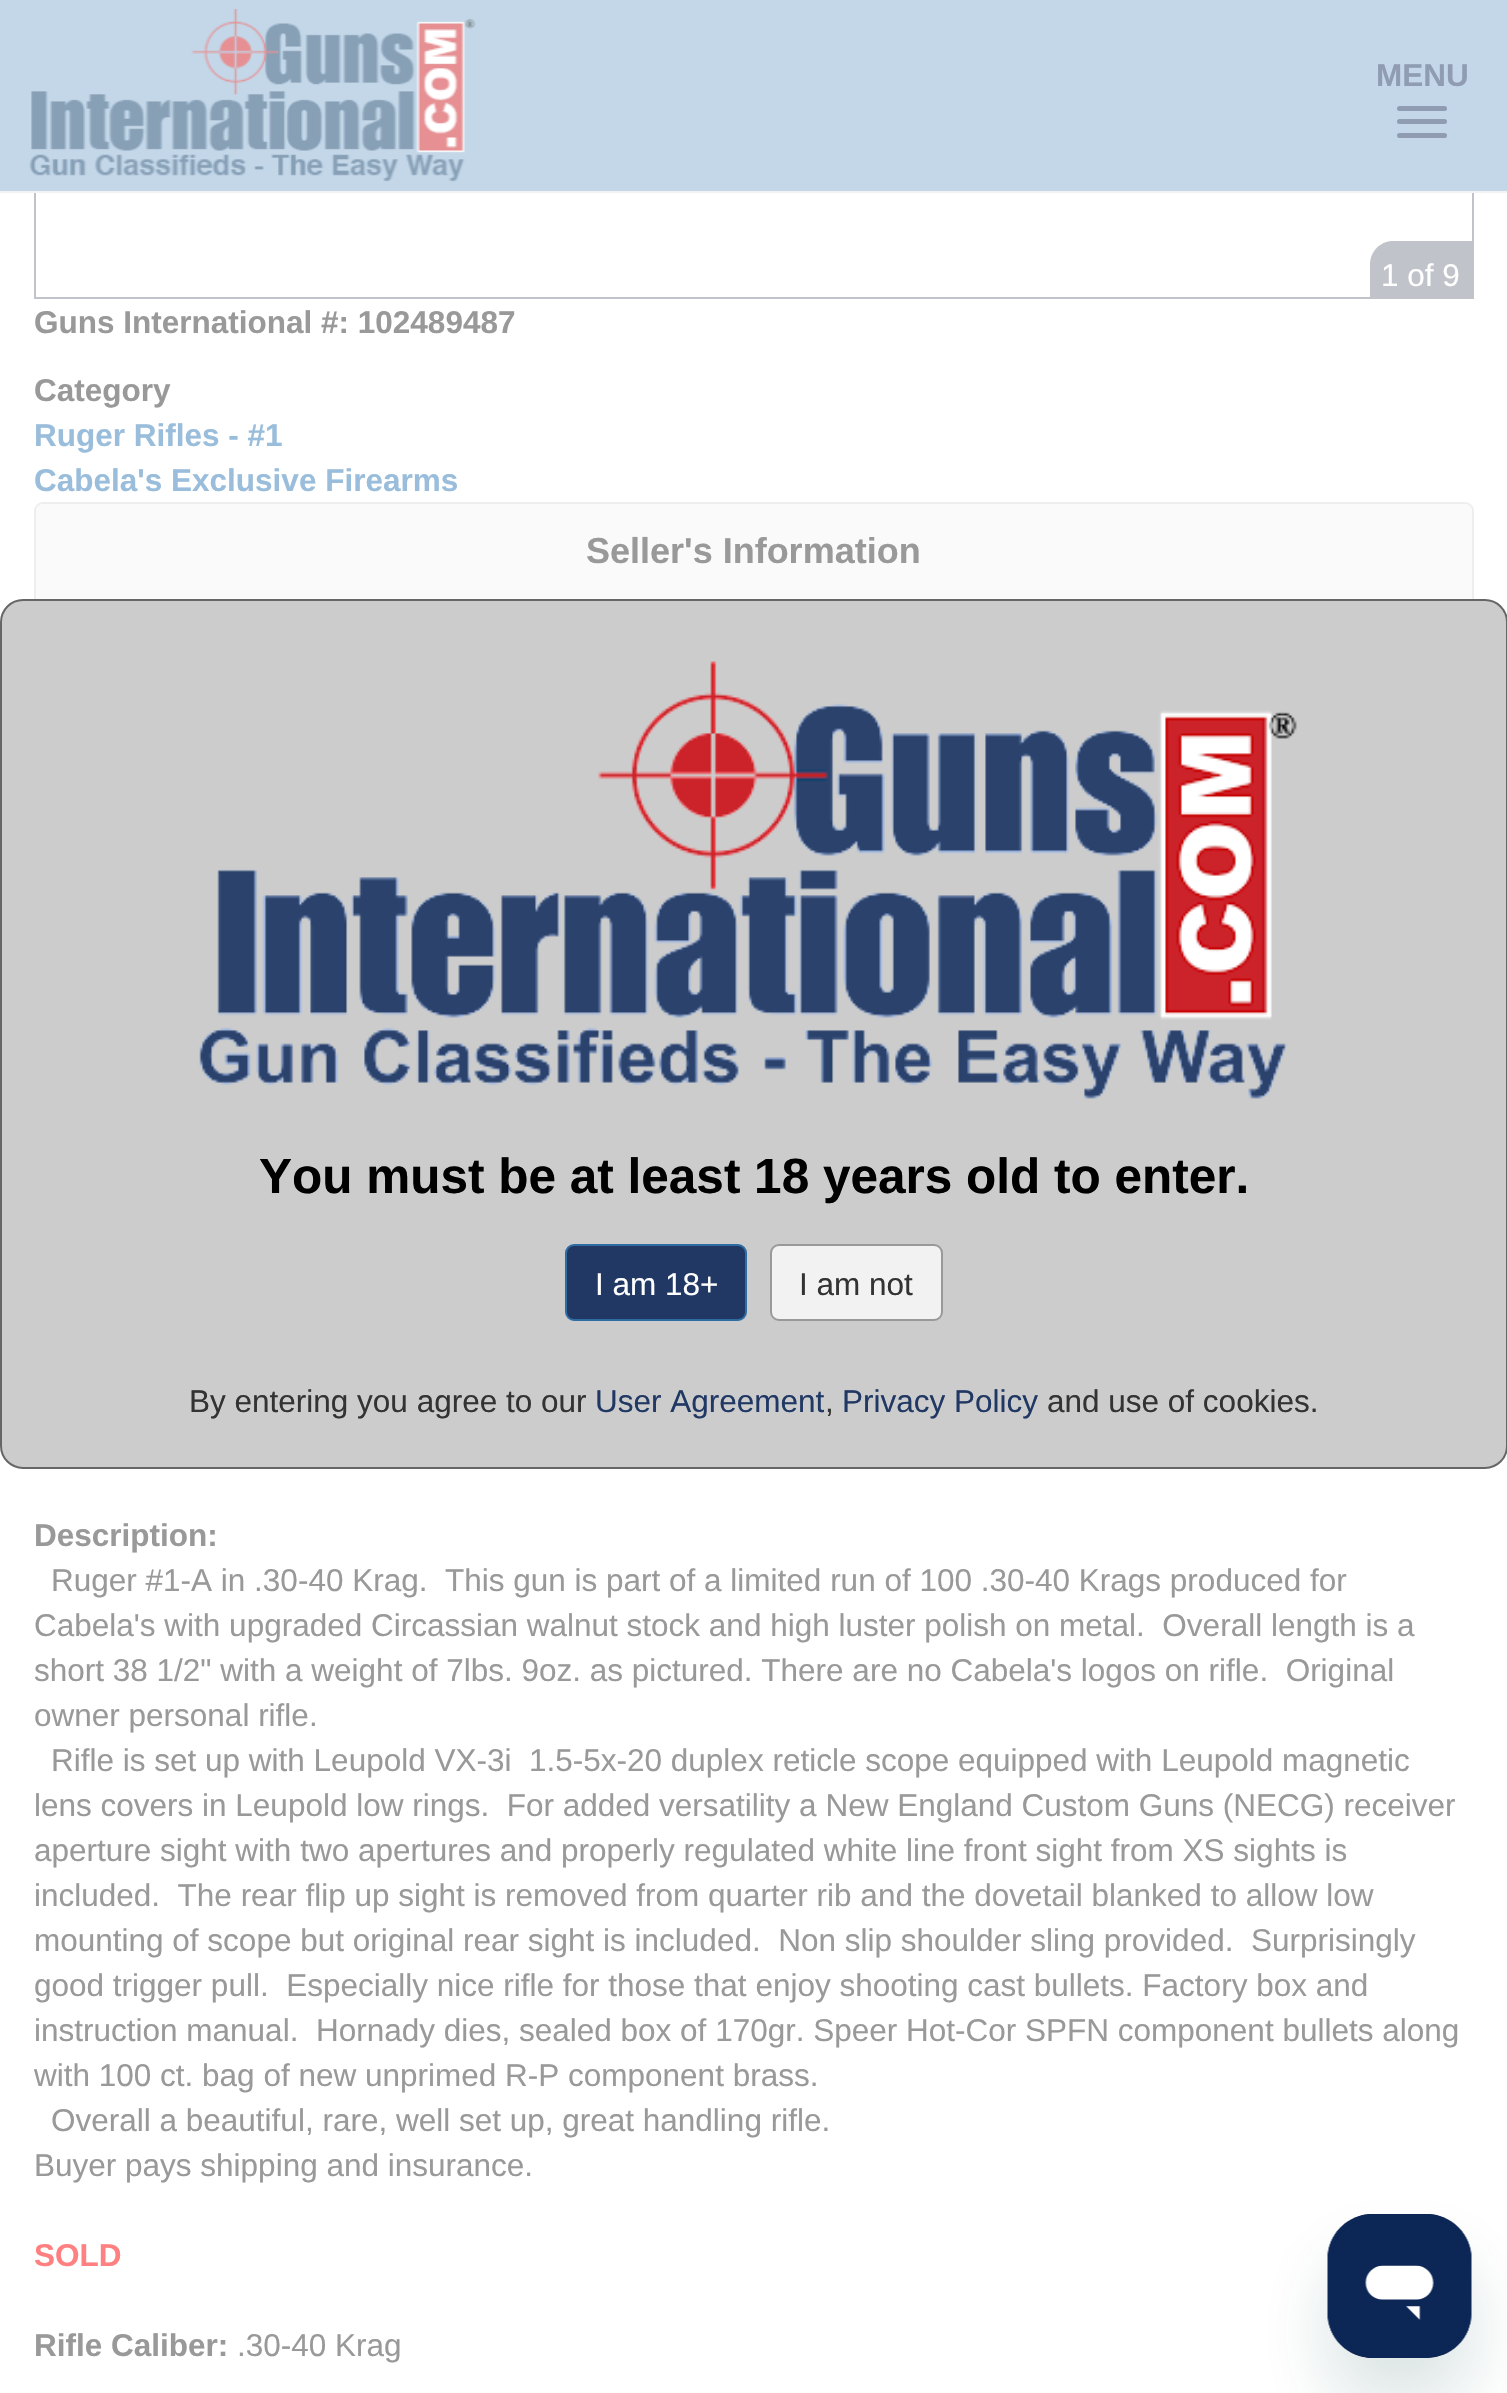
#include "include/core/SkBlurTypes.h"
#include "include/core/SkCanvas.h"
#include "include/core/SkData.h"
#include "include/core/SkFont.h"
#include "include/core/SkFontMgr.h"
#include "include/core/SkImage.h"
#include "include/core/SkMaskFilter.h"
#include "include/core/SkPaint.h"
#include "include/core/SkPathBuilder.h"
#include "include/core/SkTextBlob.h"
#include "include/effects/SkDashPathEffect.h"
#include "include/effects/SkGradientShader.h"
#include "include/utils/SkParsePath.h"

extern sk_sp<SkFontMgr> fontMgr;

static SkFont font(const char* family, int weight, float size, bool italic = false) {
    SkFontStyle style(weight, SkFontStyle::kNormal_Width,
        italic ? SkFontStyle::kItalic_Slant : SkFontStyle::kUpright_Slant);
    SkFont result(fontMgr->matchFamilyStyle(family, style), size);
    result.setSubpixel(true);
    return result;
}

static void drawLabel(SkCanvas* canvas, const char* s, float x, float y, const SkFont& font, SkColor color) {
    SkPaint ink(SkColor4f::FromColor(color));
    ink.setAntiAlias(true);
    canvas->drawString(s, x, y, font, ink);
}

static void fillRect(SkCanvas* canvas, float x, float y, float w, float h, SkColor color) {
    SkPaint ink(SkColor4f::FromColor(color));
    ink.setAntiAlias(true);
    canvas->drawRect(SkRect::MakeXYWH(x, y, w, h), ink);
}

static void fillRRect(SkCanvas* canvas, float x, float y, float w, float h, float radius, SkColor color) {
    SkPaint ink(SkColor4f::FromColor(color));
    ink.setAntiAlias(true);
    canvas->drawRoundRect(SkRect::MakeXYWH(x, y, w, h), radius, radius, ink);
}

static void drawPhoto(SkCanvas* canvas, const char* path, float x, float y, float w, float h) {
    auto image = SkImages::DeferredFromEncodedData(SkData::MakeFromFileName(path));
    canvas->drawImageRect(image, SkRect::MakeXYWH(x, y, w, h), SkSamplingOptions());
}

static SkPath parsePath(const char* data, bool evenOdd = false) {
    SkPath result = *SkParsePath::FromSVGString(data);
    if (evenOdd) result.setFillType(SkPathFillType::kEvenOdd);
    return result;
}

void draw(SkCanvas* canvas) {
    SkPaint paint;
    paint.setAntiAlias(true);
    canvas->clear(0xFFFFFFFF);
    paint.setStroke(true);
    paint.setStrokeWidth(2);
    paint.setColor(0xFFC0C3C9);
    canvas->drawRect(SkRect::MakeXYWH(35, -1, 1438, 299), paint);
    fillRect(canvas, 0, 0, 1507, 191, 0xFFC4D7E8);
    fillRect(canvas, 0, 191, 1507, 2, 0xFFF3F3F3);
    drawPhoto(canvas, "assets/img1.png", 29, 9, 448, 173);
    SkFont font1 = font("Liberation Sans", 700, 31.5f);
    drawLabel(canvas, "MENU", 1376, 86, font1, 0xFF909CB1);
    fillRRect(canvas, 1397, 106, 50, 5, 2.5f, 0xFF909CB1);
    fillRRect(canvas, 1397, 119, 50, 5, 2.5f, 0xFF909CB1);
    fillRRect(canvas, 1397, 133, 50, 5, 2.5f, 0xFF909CB1);
    paint.setStroke(false);
    canvas->drawPath(parsePath("M1393 241H1472V297H1370V264C1370 251.5 1380.5 241 1393 241Z"), paint);
    SkFont font2 = font("Liberation Sans", 400, 31.5f);
    drawLabel(canvas, "1 of 9", 1381, 286, font2, 0xFFFFFFFF);
    drawLabel(canvas, "Guns International #: 102489487", 34, 333, font1, 0xFF999999);
    drawLabel(canvas, "Category", 34, 401, font1, 0xFF999999);
    drawLabel(canvas, "Ruger Rifles - #1", 34, 446, font1, 0xFF99BDDB);
    drawLabel(canvas, "Cabela's Exclusive Firearms", 34, 491, font1, 0xFF99BDDB);
    paint.setStroke(true);
    paint.setColor(0xFFEEEEEE);
    canvas->drawRoundRect(SkRect::MakeXYWH(35, 503, 1438, 873), 8, 8, paint);
    paint.setStroke(false);
    paint.setColor(0xFFFAFAFA);
    canvas->drawPath(parsePath("M43 504H1465C1469 504 1472 507 1472 511V603H36V511C36 507 39 504 43 504Z"), paint);
    SkFont font3 = font("Liberation Sans", 700, 36);
    drawLabel(canvas, "Seller's Information", 586, 563, font3, 0xFF999999);
    drawLabel(canvas, "Description:", 34, 1546, font1, 0xFF999999);
    drawLabel(canvas, "Ruger #1-A in .30-40 Krag.  This gun is part of a limited run of 100 .30-40 Krags produced for", 51, 1591, font2, 0xFF999999);
    drawLabel(canvas, "Cabela's with upgraded Circassian walnut stock and high luster polish on metal.  Overall length is a", 34, 1636, font2, 0xFF999999);
    drawLabel(canvas, "short 38 1/2\" with a weight of 7lbs. 9oz. as pictured. There are no Cabela's logos on rifle.  Original", 34, 1681, font2, 0xFF999999);
    drawLabel(canvas, "owner personal rifle.", 34, 1726, font2, 0xFF999999);
    drawLabel(canvas, "Rifle is set up with Leupold VX-3i  1.5-5x-20 duplex reticle scope equipped with Leupold magnetic", 51, 1771, font2, 0xFF999999);
    drawLabel(canvas, "lens covers in Leupold low rings.  For added versatility a New England Custom Guns (NECG) receiver", 34, 1816, font2, 0xFF999999);
    drawLabel(canvas, "aperture sight with two apertures and properly regulated white line front sight from XS sights is", 34, 1861, font2, 0xFF999999);
    drawLabel(canvas, "included.  The rear flip up sight is removed from quarter rib and the dovetail blanked to allow low", 34, 1906, font2, 0xFF999999);
    drawLabel(canvas, "mounting of scope but original rear sight is included.  Non slip shoulder sling provided.  Surprisingly", 34, 1951, font2, 0xFF999999);
    drawLabel(canvas, "good trigger pull.  Especially nice rifle for those that enjoy shooting cast bullets. Factory box and", 34, 1996, font2, 0xFF999999);
    drawLabel(canvas, "instruction manual.  Hornady dies, sealed box of 170gr. Speer Hot-Cor SPFN component bullets along", 34, 2041, font2, 0xFF999999);
    drawLabel(canvas, "with 100 ct. bag of new unprimed R-P component brass.", 34, 2086, font2, 0xFF999999);
    drawLabel(canvas, "Overall a beautiful, rare, well set up, great handling rifle.", 51, 2131, font2, 0xFF999999);
    drawLabel(canvas, "Buyer pays shipping and insurance.", 34, 2176, font2, 0xFF999999);
    drawLabel(canvas, "SOLD", 34, 2266, font1, 0xFFFF8080);
    drawLabel(canvas, "Rifle Caliber:", 34, 2356, font1, 0xFF999999);
    drawLabel(canvas, ".30-40 Krag", 237, 2356, font2, 0xFF999999);
    paint.setColor(0xFFCCCCCC);
    canvas->drawRoundRect(SkRect::MakeXYWH(1, 600, 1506, 868), 22, 22, paint);
    paint.setStroke(true);
    paint.setColor(0xFF666666);
    canvas->drawRoundRect(SkRect::MakeXYWH(1, 600, 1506, 868), 22, 22, paint);
    drawPhoto(canvas, "assets/img2.png", 199, 661, 1098, 438);
    SkFont font4 = font("Liberation Sans", 700, 49.5f);
    drawLabel(canvas, "You must be at least 18 years old to enter.", 259, 1193, font4, 0xFF000000);
    paint.setStroke(false);
    paint.setColor(0xFF203863);
    canvas->drawRoundRect(SkRect::MakeXYWH(566, 1245, 180, 75), 8, 8, paint);
    paint.setStroke(true);
    paint.setColor(0xFF2E6DA4);
    canvas->drawRoundRect(SkRect::MakeXYWH(566, 1245, 180, 75), 8, 8, paint);
    drawLabel(canvas, "I am 18+", 595, 1295, font2, 0xFFFFFFFF);
    paint.setStroke(false);
    paint.setColor(0xFFF2F2F2);
    canvas->drawRoundRect(SkRect::MakeXYWH(771, 1245, 171, 75), 8, 8, paint);
    paint.setStroke(true);
    paint.setColor(0xFF999999);
    canvas->drawRoundRect(SkRect::MakeXYWH(771, 1245, 171, 75), 8, 8, paint);
    drawLabel(canvas, "I am not", 799, 1295, font2, 0xFF333333);
    drawLabel(canvas, "By entering you agree to our", 189, 1412, font2, 0xFF333333);
    drawLabel(canvas, "User Agreement", 595, 1412, font2, 0xFF203863);
    drawLabel(canvas, ",", 825, 1412, font2, 0xFF333333);
    drawLabel(canvas, "Privacy Policy", 842, 1412, font2, 0xFF203863);
    drawLabel(canvas, "and use of cookies.", 1047, 1412, font2, 0xFF333333);
    paint.setStroke(false);
    paint.setColor(0x2617494D);
    paint.setMaskFilter(SkMaskFilter::MakeBlur(kNormal_SkBlurStyle, 34));
    canvas->drawRoundRect(SkRect::MakeXYWH(1328, 2259, 144, 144), 45, 45, paint);
    paint.setMaskFilter(nullptr);
    drawPhoto(canvas, "assets/img3.png", 1327, 2214, 145, 144);
}
